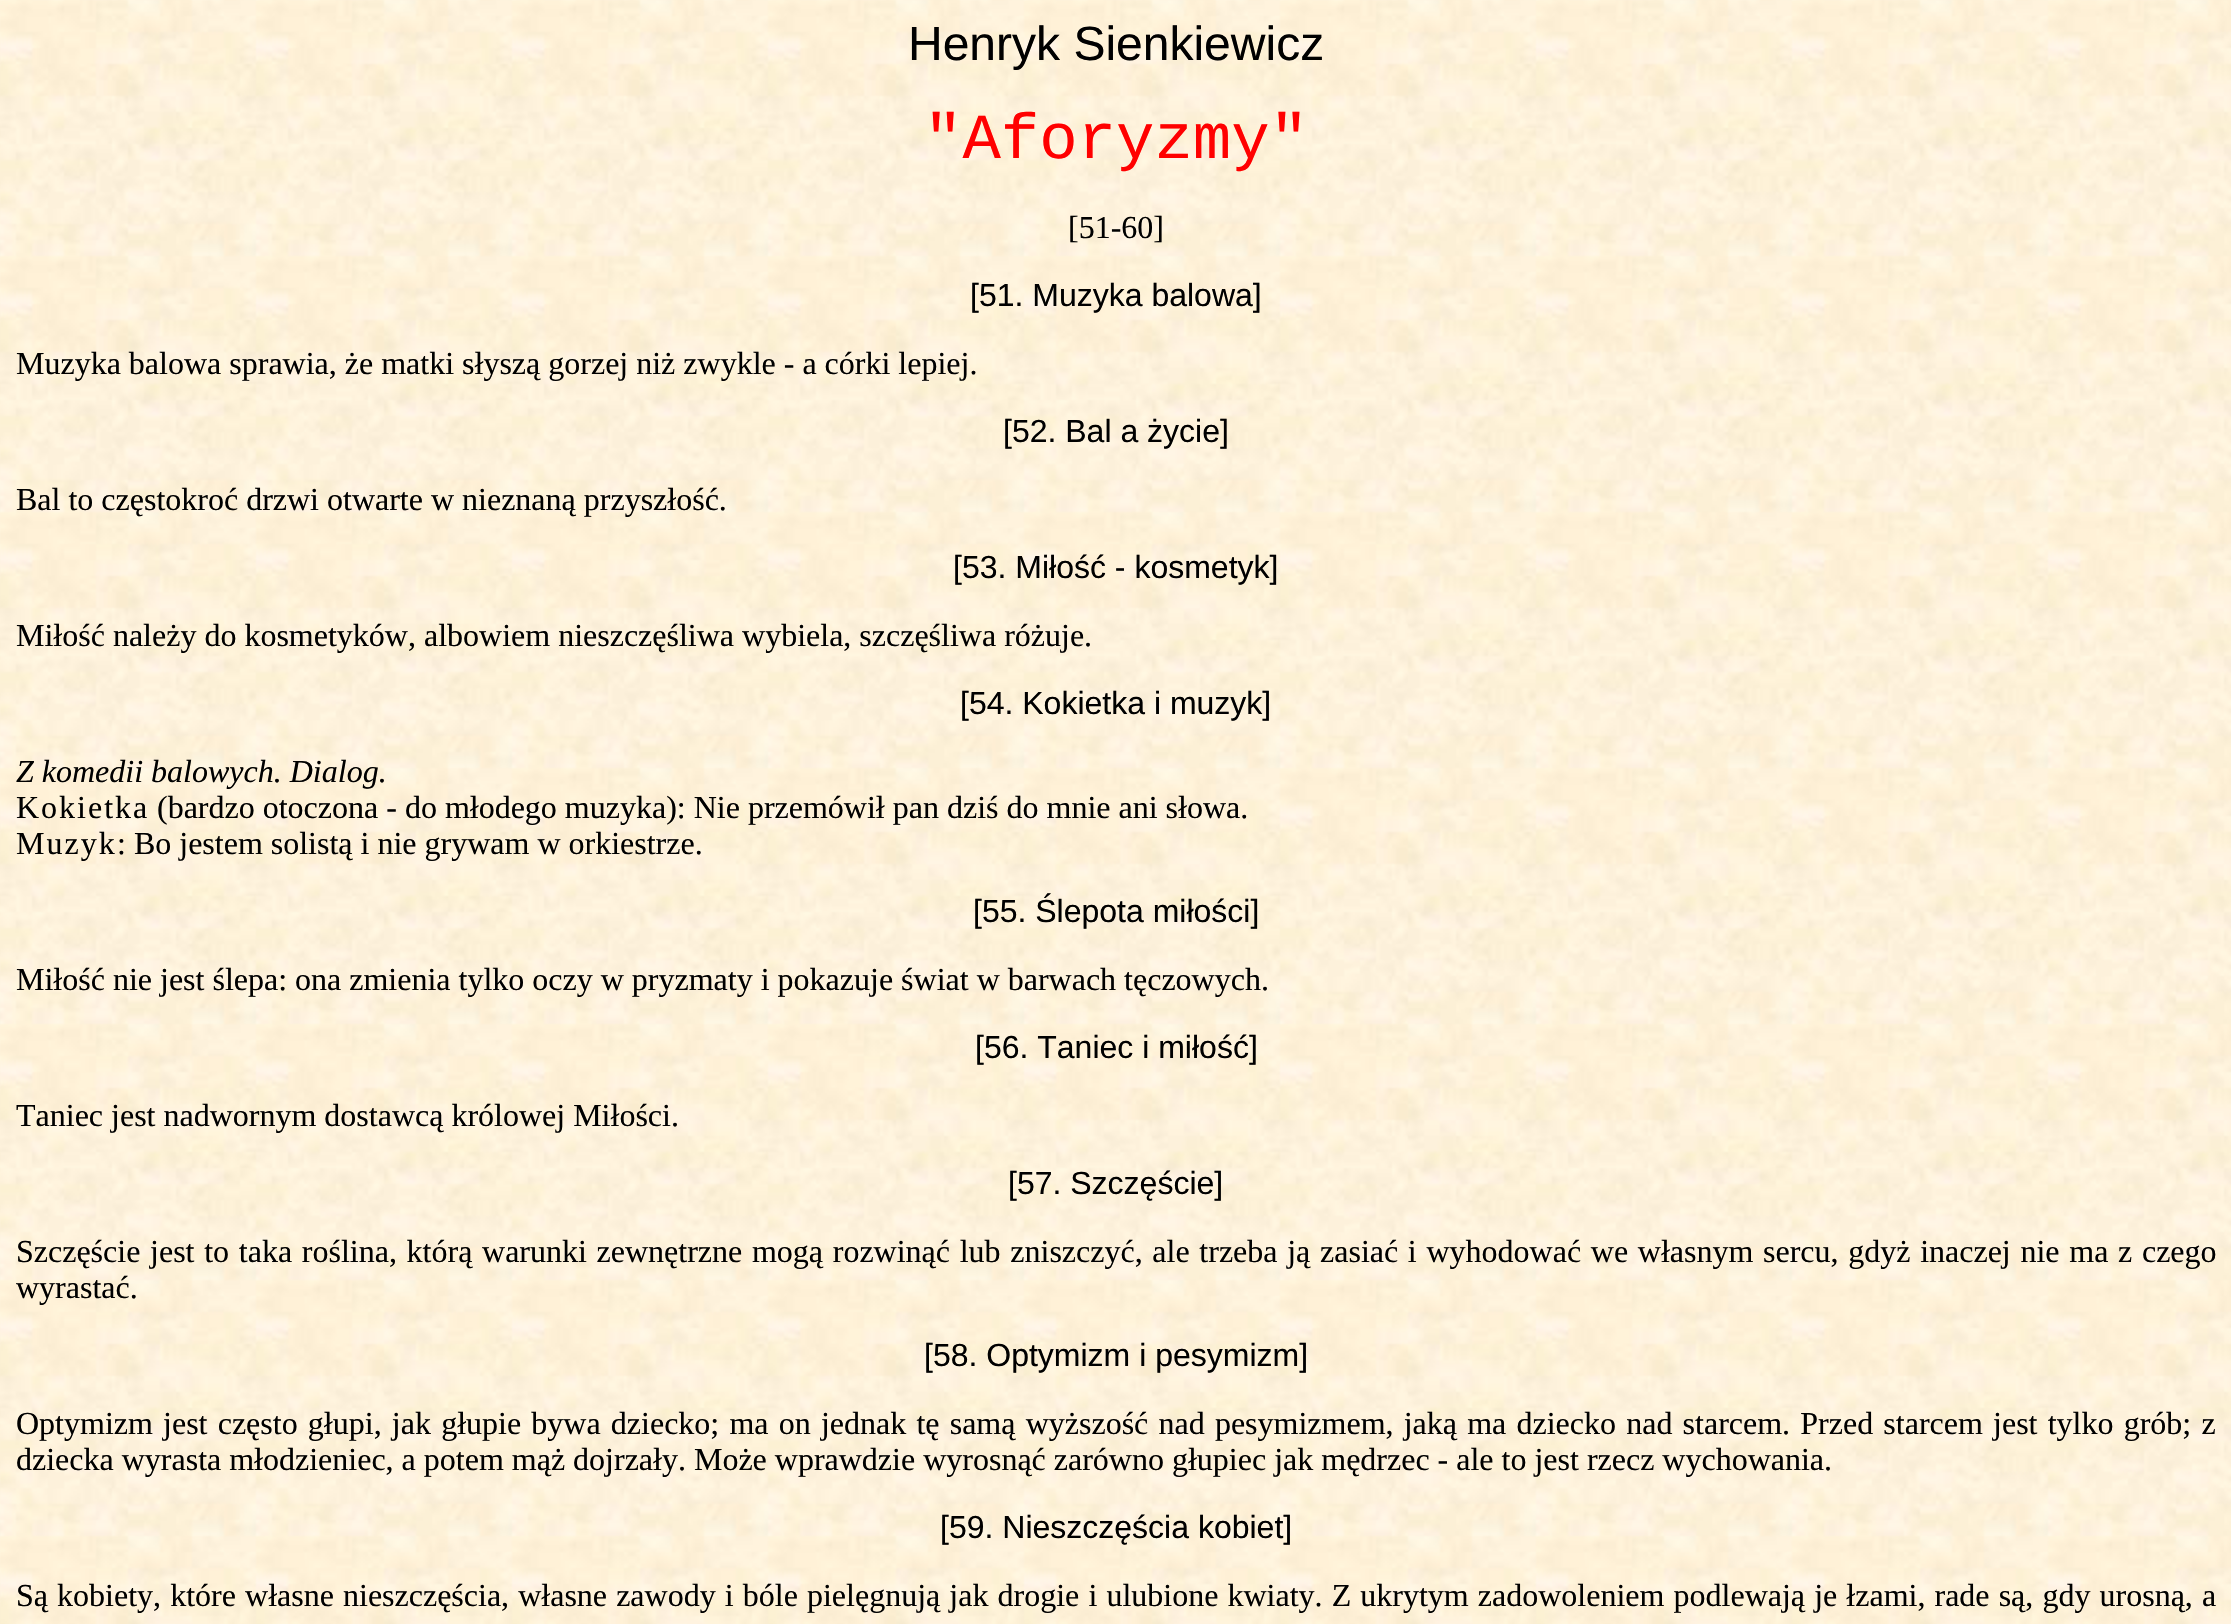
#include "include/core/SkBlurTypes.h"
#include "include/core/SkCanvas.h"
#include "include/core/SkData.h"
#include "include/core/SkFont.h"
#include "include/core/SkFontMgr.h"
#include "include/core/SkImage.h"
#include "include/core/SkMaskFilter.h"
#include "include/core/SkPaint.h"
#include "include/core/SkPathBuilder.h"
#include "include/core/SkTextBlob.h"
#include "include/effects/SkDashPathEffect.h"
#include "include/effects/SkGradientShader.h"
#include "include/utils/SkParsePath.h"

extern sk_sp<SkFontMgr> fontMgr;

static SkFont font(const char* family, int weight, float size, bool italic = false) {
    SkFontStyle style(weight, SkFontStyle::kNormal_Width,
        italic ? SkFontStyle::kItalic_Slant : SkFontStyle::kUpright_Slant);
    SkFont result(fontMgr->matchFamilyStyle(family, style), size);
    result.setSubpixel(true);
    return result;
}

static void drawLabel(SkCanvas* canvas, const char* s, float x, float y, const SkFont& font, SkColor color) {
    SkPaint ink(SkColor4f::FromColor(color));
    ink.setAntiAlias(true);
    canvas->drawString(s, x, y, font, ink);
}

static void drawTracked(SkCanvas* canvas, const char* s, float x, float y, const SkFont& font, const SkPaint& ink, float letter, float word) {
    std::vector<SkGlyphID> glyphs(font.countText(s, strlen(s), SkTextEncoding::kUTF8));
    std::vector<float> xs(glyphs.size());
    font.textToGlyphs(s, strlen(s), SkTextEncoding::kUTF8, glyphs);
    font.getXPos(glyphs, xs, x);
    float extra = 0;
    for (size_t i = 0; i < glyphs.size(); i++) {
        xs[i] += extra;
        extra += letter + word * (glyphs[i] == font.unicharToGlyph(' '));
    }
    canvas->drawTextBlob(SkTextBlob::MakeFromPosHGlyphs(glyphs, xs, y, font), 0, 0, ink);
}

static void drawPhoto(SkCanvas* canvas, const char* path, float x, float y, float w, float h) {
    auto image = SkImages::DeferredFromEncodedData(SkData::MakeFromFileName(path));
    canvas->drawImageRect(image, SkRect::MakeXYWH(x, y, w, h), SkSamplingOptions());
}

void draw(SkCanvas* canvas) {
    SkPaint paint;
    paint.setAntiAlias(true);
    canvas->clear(0xFFFFFFFF);
    drawPhoto(canvas, "assets/img1.png", 0, 0, 2231, 1624);
    SkFont font1 = font("Liberation Sans", 400, 48);
    drawLabel(canvas, "Henryk Sienkiewicz", 908, 60, font1, 0xFF000000);
    SkFont font2 = font("Liberation Mono", 400, 64);
    drawLabel(canvas, "\"Aforyzmy\"", 924, 158, font2, 0xFFFF0000);
    SkFont font3 = font("Liberation Serif", 400, 32);
    drawLabel(canvas, "[51-60]", 1068, 238, font3, 0xFF000000);
    SkFont font4 = font("Liberation Sans", 400, 32);
    drawLabel(canvas, "[51. Muzyka balowa]", 970, 306, font4, 0xFF000000);
    drawLabel(canvas, "Muzyka balowa sprawia, że matki słyszą gorzej niż zwykle - a córki lepiej.", 16, 374, font3, 0xFF000000);
    drawLabel(canvas, "[52. Bal a życie]", 1003, 442, font4, 0xFF000000);
    drawLabel(canvas, "Bal to częstokroć drzwi otwarte w nieznaną przyszłość.", 16, 510, font3, 0xFF000000);
    drawLabel(canvas, "[53. Miłość - kosmetyk]", 953, 578, font4, 0xFF000000);
    drawLabel(canvas, "Miłość należy do kosmetyków, albowiem nieszczęśliwa wybiela, szczęśliwa różuje.", 16, 646, font3, 0xFF000000);
    drawLabel(canvas, "[54. Kokietka i muzyk]", 960, 714, font4, 0xFF000000);
    SkFont font5 = font("Liberation Serif", 400, 32, true);
    drawLabel(canvas, "Z komedii balowych. Dialog.", 16, 782, font5, 0xFF000000);
    paint.setColor(0xFF000000);
    drawTracked(canvas, "Kokietka", 16, 818, font3, paint, 2, 0);
    drawLabel(canvas, "(bardzo otoczona - do młodego muzyka): Nie przemówił pan dziś do mnie ani słowa.", 157, 818, font3, 0xFF000000);
    drawTracked(canvas, "Muzyk", 16, 854, font3, paint, 2, 0);
    drawLabel(canvas, ": Bo jestem solistą i nie grywam w orkiestrze.", 117, 854, font3, 0xFF000000);
    drawLabel(canvas, "[55. Ślepota miłości]", 973, 922, font4, 0xFF000000);
    drawLabel(canvas, "Miłość nie jest ślepa: ona zmienia tylko oczy w pryzmaty i pokazuje świat w barwach tęczowych.", 16, 990, font3, 0xFF000000);
    drawLabel(canvas, "[56. Taniec i miłość]", 975, 1058, font4, 0xFF000000);
    drawLabel(canvas, "Taniec jest nadwornym dostawcą królowej Miłości.", 16, 1126, font3, 0xFF000000);
    drawLabel(canvas, "[57. Szczęście]", 1008, 1194, font4, 0xFF000000);
    drawTracked(canvas, "Szczęście jest to taka roślina, którą warunki zewnętrzne mogą rozwinąć lub zniszczyć, ale trzeba ją zasiać i wyhodować we własnym sercu, gdyż inaczej nie ma z czego", 16, 1262, font3, paint, 0, 1.7f);
    drawLabel(canvas, "wyrastać.", 16, 1298, font3, 0xFF000000);
    drawLabel(canvas, "[58. Optymizm i pesymizm]", 924, 1366, font4, 0xFF000000);
    drawTracked(canvas, "Optymizm jest często głupi, jak głupie bywa dziecko; ma on jednak tę samą wyższość nad pesymizmem, jaką ma dziecko nad starcem. Przed starcem jest tylko grób; z", 16, 1434, font3, paint, 0, 2.2f);
    drawLabel(canvas, "dziecka wyrasta młodzieniec, a potem mąż dojrzały. Może wprawdzie wyrosnąć zarówno głupiec jak mędrzec - ale to jest rzecz wychowania.", 16, 1470, font3, 0xFF000000);
    drawLabel(canvas, "[59. Nieszczęścia kobiet]", 940, 1538, font4, 0xFF000000);
    drawTracked(canvas, "Są kobiety, które własne nieszczęścia, własne zawody i bóle pielęgnują jak drogie i ulubione kwiaty. Z ukrytym zadowoleniem podlewają je łzami, rade są, gdy urosną, a", 16, 1606, font3, paint, 0, 1.1f);
}
